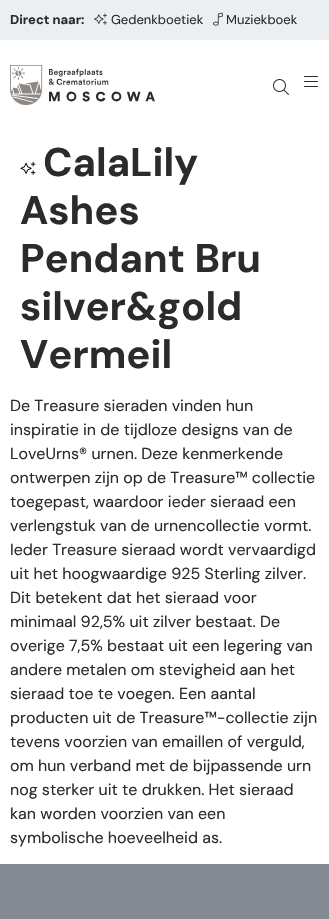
#include "include/core/SkBlurTypes.h"
#include "include/core/SkCanvas.h"
#include "include/core/SkData.h"
#include "include/core/SkFont.h"
#include "include/core/SkFontMgr.h"
#include "include/core/SkImage.h"
#include "include/core/SkMaskFilter.h"
#include "include/core/SkPaint.h"
#include "include/core/SkPathBuilder.h"
#include "include/core/SkTextBlob.h"
#include "include/effects/SkDashPathEffect.h"
#include "include/effects/SkGradientShader.h"
#include "include/utils/SkParsePath.h"

extern sk_sp<SkFontMgr> fontMgr;

static SkFont font(const char* family, int weight, float size, bool italic = false) {
    SkFontStyle style(weight, SkFontStyle::kNormal_Width,
        italic ? SkFontStyle::kItalic_Slant : SkFontStyle::kUpright_Slant);
    SkFont result(fontMgr->matchFamilyStyle(family, style), size);
    result.setSubpixel(true);
    return result;
}

static void drawLabel(SkCanvas* canvas, const char* s, float x, float y, const SkFont& font, SkColor color) {
    SkPaint ink(SkColor4f::FromColor(color));
    ink.setAntiAlias(true);
    canvas->drawString(s, x, y, font, ink);
}

static void fillRect(SkCanvas* canvas, float x, float y, float w, float h, SkColor color) {
    SkPaint ink(SkColor4f::FromColor(color));
    ink.setAntiAlias(true);
    canvas->drawRect(SkRect::MakeXYWH(x, y, w, h), ink);
}

static void drawPhoto(SkCanvas* canvas, const char* path, float x, float y, float w, float h) {
    auto image = SkImages::DeferredFromEncodedData(SkData::MakeFromFileName(path));
    canvas->drawImageRect(image, SkRect::MakeXYWH(x, y, w, h), SkSamplingOptions());
}

void draw(SkCanvas* canvas) {
    SkPaint paint;
    paint.setAntiAlias(true);
    canvas->clear(0xFFFFFFFF);
    fillRect(canvas, 0, 0, 329, 40, 0xFFEBEFF2);
    SkFont font1 = font("DM Sans", 700, 13);
    drawLabel(canvas, "Direct naar:", 10, 24, font1, 0xFF2B2B2B);
    drawPhoto(canvas, "assets/img1.png", 94, 13, 13, 12);
    SkFont font2 = font("DM Sans", 400, 13);
    drawLabel(canvas, "Gedenkboetiek", 111, 24, font2, 0xFF2B2B2B);
    drawPhoto(canvas, "assets/img2.png", 213, 12, 10, 14);
    drawLabel(canvas, "Muziekboek", 226, 24, font2, 0xFF2B2B2B);
    drawPhoto(canvas, "assets/img3.png", 10, 65, 145, 40);
    drawPhoto(canvas, "assets/img4.png", 273, 79, 16, 16);
    drawPhoto(canvas, "assets/img5.png", 304, 76, 14, 11);
    drawPhoto(canvas, "assets/img6.png", 20, 161, 16, 14);
    SkFont font3 = font("DM Sans", 700, 40);
    drawLabel(canvas, "CalaLily", 43, 176, font3, 0xFF2B2B2B);
    drawLabel(canvas, "Ashes", 20, 224, font3, 0xFF2B2B2B);
    drawLabel(canvas, "Pendant Bru", 20, 272, font3, 0xFF2B2B2B);
    drawLabel(canvas, "silver&gold", 20, 320, font3, 0xFF2B2B2B);
    drawLabel(canvas, "Vermeil", 20, 368, font3, 0xFF2B2B2B);
    SkFont font4 = font("DM Sans", 400, 16);
    drawLabel(canvas, "De Treasure sieraden vinden hun", 10, 411, font4, 0xFF2B2B2B);
    drawLabel(canvas, "inspiratie in de tijdloze designs van de", 10, 435, font4, 0xFF2B2B2B);
    drawLabel(canvas, "LoveUrns® urnen. Deze kenmerkende", 10, 459, font4, 0xFF2B2B2B);
    drawLabel(canvas, "ontwerpen zijn op de Treasure™ collectie", 10, 483, font4, 0xFF2B2B2B);
    drawLabel(canvas, "toegepast, waardoor ieder sieraad een", 10, 507, font4, 0xFF2B2B2B);
    drawLabel(canvas, "verlengstuk van de urnencollectie vormt.", 10, 531, font4, 0xFF2B2B2B);
    drawLabel(canvas, "Ieder Treasure sieraad wordt vervaardigd", 10, 555, font4, 0xFF2B2B2B);
    drawLabel(canvas, "uit het hoogwaardige 925 Sterling zilver.", 10, 579, font4, 0xFF2B2B2B);
    drawLabel(canvas, "Dit betekent dat het sieraad voor", 10, 603, font4, 0xFF2B2B2B);
    drawLabel(canvas, "minimaal 92,5% uit zilver bestaat. De", 10, 627, font4, 0xFF2B2B2B);
    drawLabel(canvas, "overige 7,5% bestaat uit een legering van", 10, 651, font4, 0xFF2B2B2B);
    drawLabel(canvas, "andere metalen om stevigheid aan het", 10, 675, font4, 0xFF2B2B2B);
    drawLabel(canvas, "sieraad toe te voegen. Een aantal", 10, 699, font4, 0xFF2B2B2B);
    drawLabel(canvas, "producten uit de Treasure™-collectie zijn", 10, 723, font4, 0xFF2B2B2B);
    drawLabel(canvas, "tevens voorzien van emaillen of verguld,", 10, 747, font4, 0xFF2B2B2B);
    drawLabel(canvas, "om hun verband met de bijpassende urn", 10, 771, font4, 0xFF2B2B2B);
    drawLabel(canvas, "nog sterker uit te drukken. Het sieraad", 10, 795, font4, 0xFF2B2B2B);
    drawLabel(canvas, "kan worden voorzien van een", 10, 819, font4, 0xFF2B2B2B);
    drawLabel(canvas, "symbolische hoeveelheid as.", 10, 843, font4, 0xFF2B2B2B);
    fillRect(canvas, 0, 864, 329, 55, 0xFF838A94);
}
